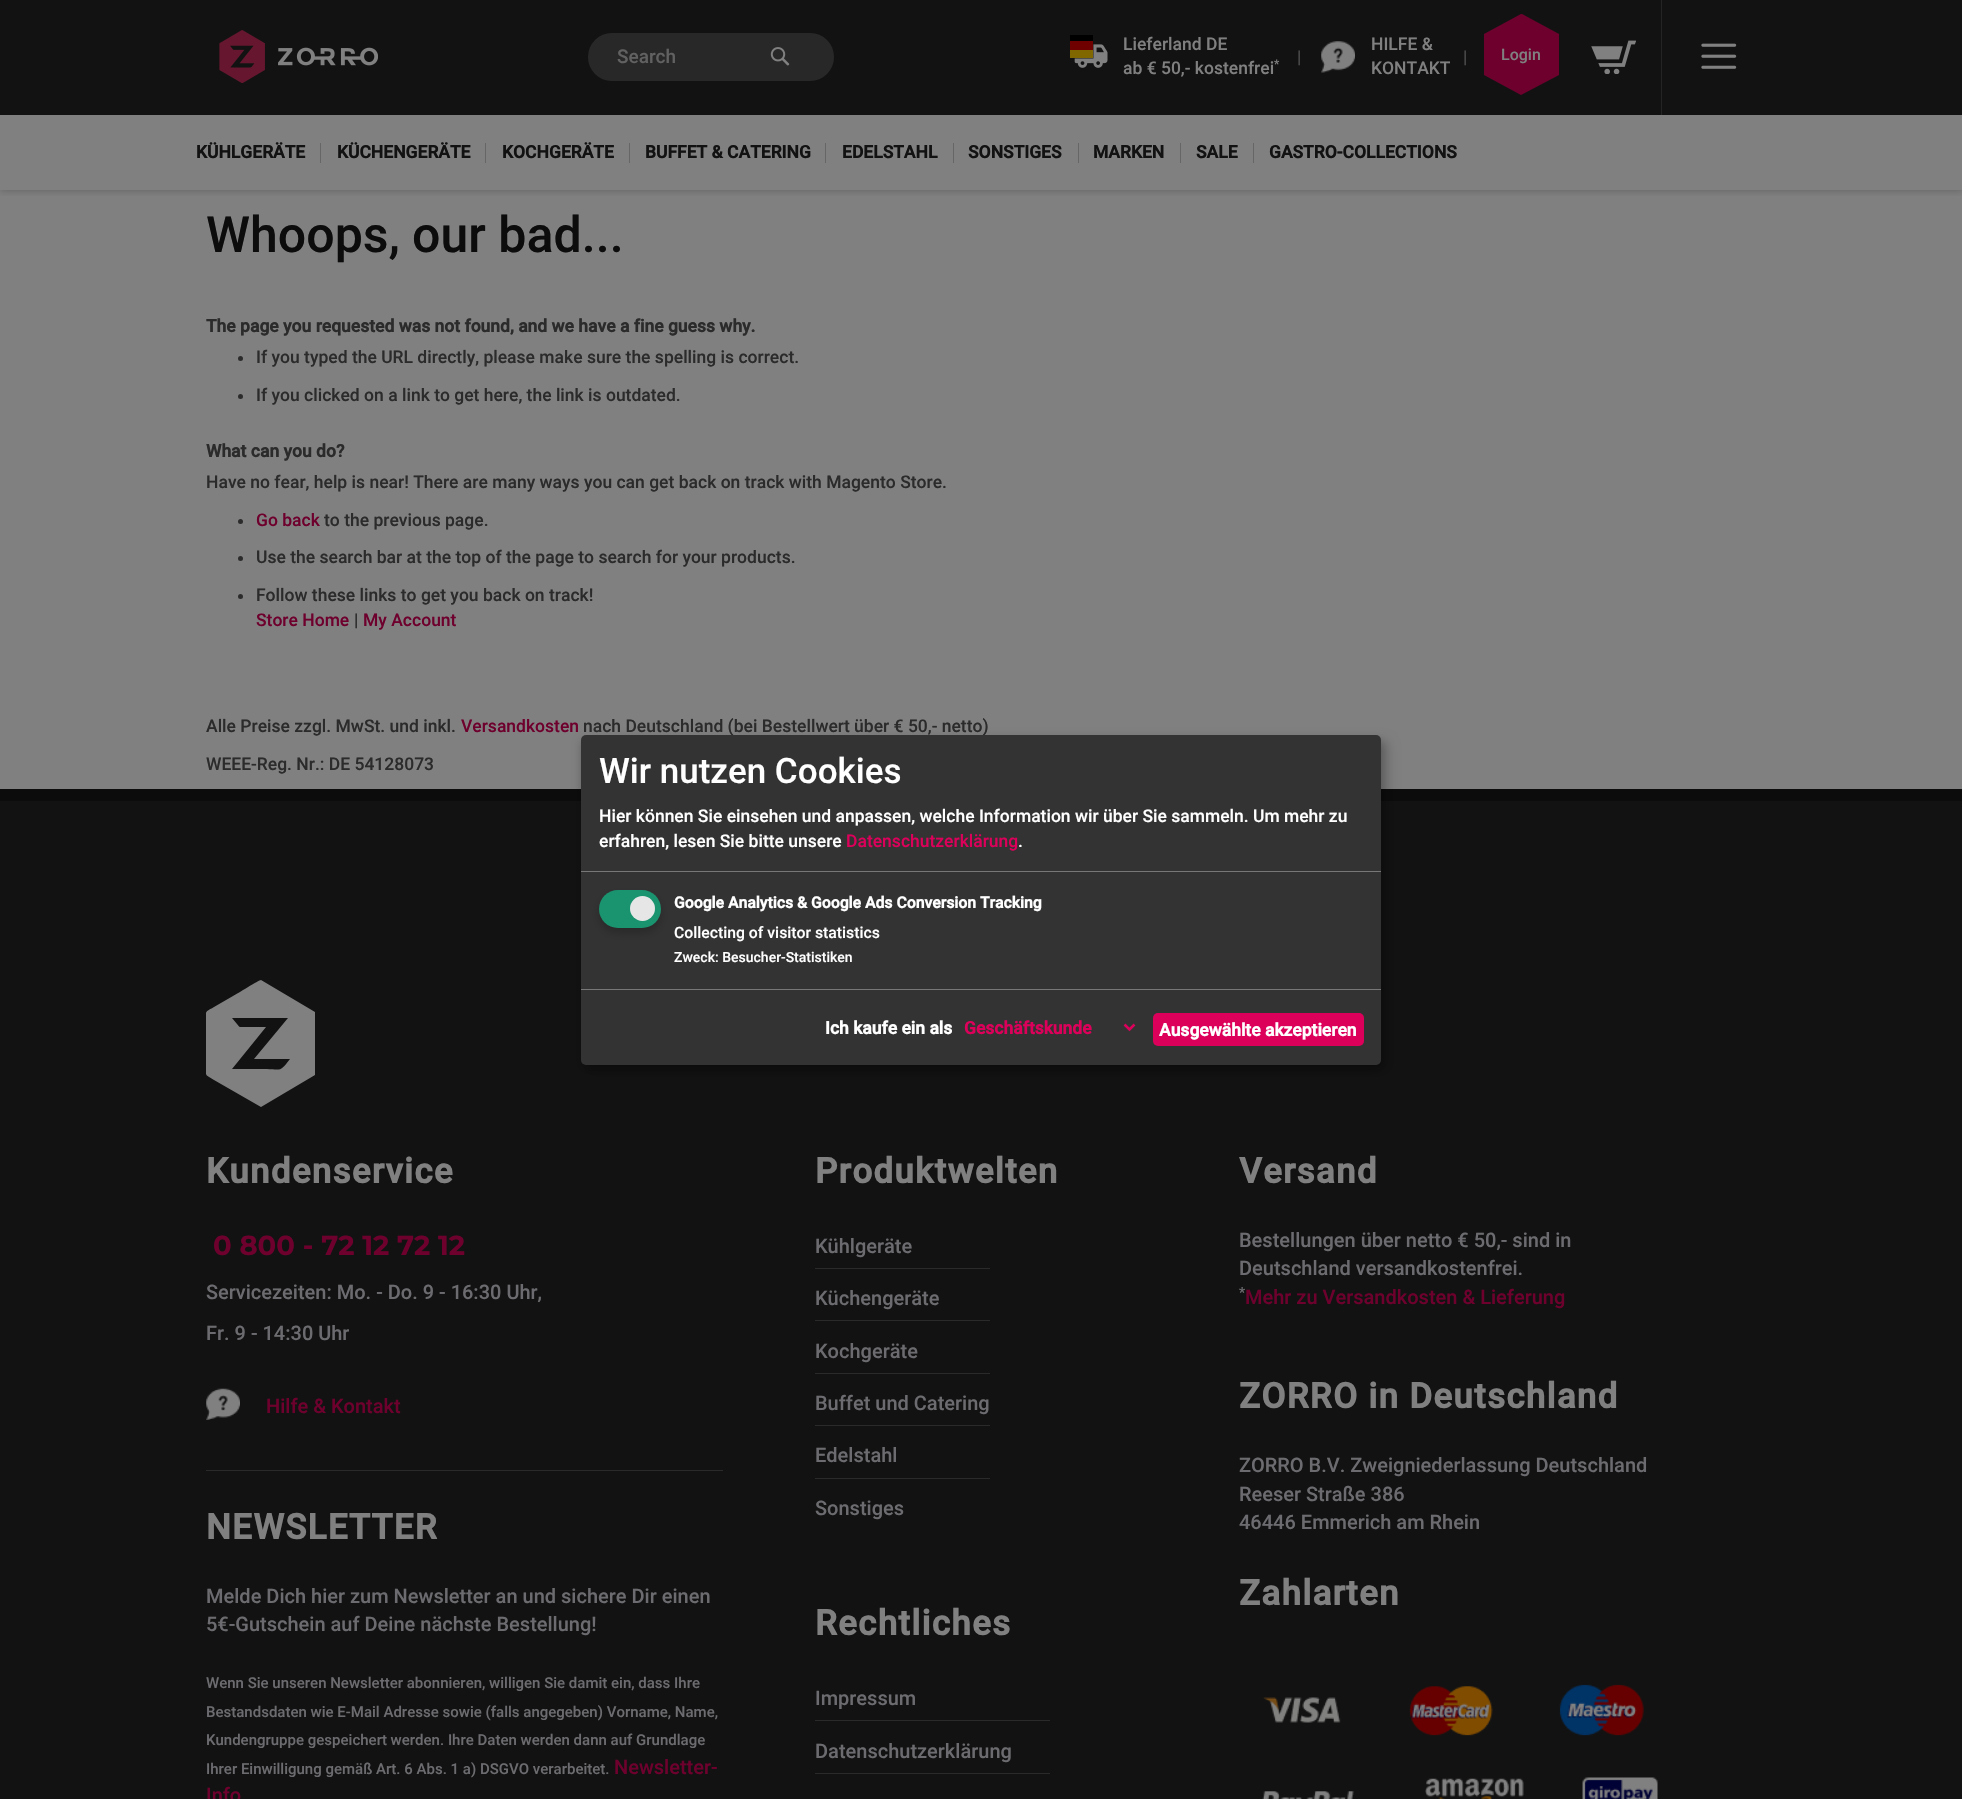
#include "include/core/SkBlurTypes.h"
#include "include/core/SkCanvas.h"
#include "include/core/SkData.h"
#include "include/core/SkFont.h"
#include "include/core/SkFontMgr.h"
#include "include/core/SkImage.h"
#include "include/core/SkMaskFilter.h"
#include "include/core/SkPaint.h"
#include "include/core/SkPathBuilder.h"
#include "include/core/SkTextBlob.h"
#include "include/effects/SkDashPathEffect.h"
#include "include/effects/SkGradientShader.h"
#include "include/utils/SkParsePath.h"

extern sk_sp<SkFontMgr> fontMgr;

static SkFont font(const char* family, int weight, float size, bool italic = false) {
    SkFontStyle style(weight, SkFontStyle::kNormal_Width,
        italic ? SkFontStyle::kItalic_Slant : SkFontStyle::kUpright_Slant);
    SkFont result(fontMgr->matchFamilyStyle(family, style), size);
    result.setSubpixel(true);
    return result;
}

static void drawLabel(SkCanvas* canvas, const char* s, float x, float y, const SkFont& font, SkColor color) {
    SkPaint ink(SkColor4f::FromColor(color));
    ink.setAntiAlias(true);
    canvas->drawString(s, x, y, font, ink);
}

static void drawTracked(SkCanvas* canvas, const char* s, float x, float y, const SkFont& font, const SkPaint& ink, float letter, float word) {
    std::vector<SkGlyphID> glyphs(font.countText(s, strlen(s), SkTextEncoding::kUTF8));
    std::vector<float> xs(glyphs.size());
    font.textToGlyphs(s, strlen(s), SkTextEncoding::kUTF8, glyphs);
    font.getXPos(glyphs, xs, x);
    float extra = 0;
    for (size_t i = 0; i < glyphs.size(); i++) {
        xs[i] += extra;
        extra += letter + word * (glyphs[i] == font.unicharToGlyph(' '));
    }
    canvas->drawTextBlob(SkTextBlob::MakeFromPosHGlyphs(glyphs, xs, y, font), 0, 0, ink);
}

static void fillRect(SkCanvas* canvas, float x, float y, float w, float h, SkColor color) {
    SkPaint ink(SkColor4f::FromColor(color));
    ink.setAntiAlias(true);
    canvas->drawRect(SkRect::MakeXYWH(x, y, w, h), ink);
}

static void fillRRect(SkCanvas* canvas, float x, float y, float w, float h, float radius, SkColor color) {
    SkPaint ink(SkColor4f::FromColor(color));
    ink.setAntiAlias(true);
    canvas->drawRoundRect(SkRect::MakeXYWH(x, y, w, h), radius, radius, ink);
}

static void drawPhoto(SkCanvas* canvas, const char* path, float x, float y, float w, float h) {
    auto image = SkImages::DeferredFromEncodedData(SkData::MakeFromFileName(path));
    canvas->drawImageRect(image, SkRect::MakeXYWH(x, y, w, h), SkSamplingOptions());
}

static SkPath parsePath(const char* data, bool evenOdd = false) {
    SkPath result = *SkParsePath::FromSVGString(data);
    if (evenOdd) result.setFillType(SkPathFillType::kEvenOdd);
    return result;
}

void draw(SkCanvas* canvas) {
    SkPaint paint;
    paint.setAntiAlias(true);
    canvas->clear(0xFF808080);
    canvas->save();
    canvas->clipRect(SkRect::MakeXYWH(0, 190, 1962, 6));
    paint.setColor(0x40000000);
    paint.setMaskFilter(SkMaskFilter::MakeBlur(kNormal_SkBlurStyle, 4));
    canvas->drawRect(SkRect::MakeXYWH(0, 115, 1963, 75), paint);
    paint.setMaskFilter(nullptr);
    canvas->restore();
    fillRect(canvas, 0, 0, 1962, 115, 0xFF121212);
    drawPhoto(canvas, "assets/img1.png", 219, 30, 159, 53);
    fillRRect(canvas, 588, 33, 246, 48, 24, 0xFF282828);
    SkFont font1 = font("Roboto", 500, 19);
    drawLabel(canvas, "Search", 617, 63, font1, 0xFF616161);
    drawPhoto(canvas, "assets/img2.png", 770, 47, 20, 19);
    drawPhoto(canvas, "assets/img3.png", 1070, 35, 38, 33);
    SkFont font2 = font("Roboto", 500, 17.5f);
    drawLabel(canvas, "Lieferland DE", 1123, 50, font2, 0xFF808080);
    drawLabel(canvas, "ab € 50,- kostenfrei", 1123, 74, font2, 0xFF808080);
    SkFont font3 = font("Roboto", 500, 12);
    drawLabel(canvas, "*", 1274, 68, font3, 0xFF808080);
    drawLabel(canvas, "|", 1297, 63, font2, 0xFF494949);
    drawPhoto(canvas, "assets/img4.png", 1321, 41, 34, 32);
    drawLabel(canvas, "HILFE &", 1371, 50, font2, 0xFF808080);
    drawLabel(canvas, "|", 1463, 63, font2, 0xFF494949);
    drawLabel(canvas, "KONTAKT", 1371, 74, font2, 0xFF808080);
    paint.setColor(0xFF6E002D);
    canvas->drawPath(parsePath("M1484 34L1521 14H1522L1559 34V75L1521 95L1484 75Z"), paint);
    SkFont font4 = font("Roboto", 500, 16);
    drawLabel(canvas, "Login", 1501, 60, font4, 0xFF808080);
    drawPhoto(canvas, "assets/img5.png", 1591, 40, 45, 34);
    fillRect(canvas, 1661, 0, 1, 115, 0xFF242424);
    drawPhoto(canvas, "assets/img6.png", 1701, 43, 36, 26);
    SkFont font5 = font("Roboto", 700, 17.5f);
    drawLabel(canvas, "KÜHLGERÄTE", 196, 158, font5, 0xFF121212);
    fillRect(canvas, 320, 143, 1, 20, 0xFF666666);
    drawLabel(canvas, "KÜCHENGERÄTE", 337, 158, font5, 0xFF121212);
    fillRect(canvas, 485, 143, 1, 20, 0xFF666666);
    drawLabel(canvas, "KOCHGERÄTE", 502, 158, font5, 0xFF121212);
    fillRect(canvas, 629, 143, 1, 20, 0xFF666666);
    drawLabel(canvas, "BUFFET & CATERING", 645, 158, font5, 0xFF121212);
    fillRect(canvas, 825, 143, 1, 20, 0xFF666666);
    drawLabel(canvas, "EDELSTAHL", 842, 158, font5, 0xFF121212);
    fillRect(canvas, 953, 143, 1, 20, 0xFF666666);
    drawLabel(canvas, "SONSTIGES", 968, 158, font5, 0xFF121212);
    fillRect(canvas, 1078, 143, 1, 20, 0xFF666666);
    drawLabel(canvas, "MARKEN", 1093, 158, font5, 0xFF121212);
    fillRect(canvas, 1180, 143, 1, 20, 0xFF666666);
    drawLabel(canvas, "SALE", 1196, 158, font5, 0xFF121212);
    fillRect(canvas, 1253, 143, 1, 20, 0xFF666666);
    drawLabel(canvas, "GASTRO-COLLECTIONS", 1269, 158, font5, 0xFF121212);
    SkFont font6 = font("Roboto", 500, 50);
    drawLabel(canvas, "Whoops, our bad...", 206, 252, font6, 0xFF0C0C0C);
    drawLabel(canvas, "The page you requested was not found, and we have a fine guess why.", 206, 332, font5, 0xFF2B2B2B);
    paint.setColor(0xFF2B2B2B);
    canvas->drawCircle(240.5f, 358.5f, 2.5f, paint);
    drawLabel(canvas, "If you typed the URL directly, please make sure the spelling is correct.", 256, 363, font2, 0xFF2B2B2B);
    canvas->drawCircle(240.5f, 396.5f, 2.5f, paint);
    drawLabel(canvas, "If you clicked on a link to get here, the link is outdated.", 256, 401, font2, 0xFF2B2B2B);
    drawLabel(canvas, "What can you do?", 206, 457, font5, 0xFF2B2B2B);
    drawLabel(canvas, "Have no fear, help is near! There are many ways you can get back on track with Magento Store.", 206, 488, font2, 0xFF2B2B2B);
    canvas->drawCircle(240.5f, 521.5f, 2.5f, paint);
    drawLabel(canvas, "Go back", 256, 526, font2, 0xFF6E002D);
    drawLabel(canvas, "to the previous page.", 324, 526, font2, 0xFF2B2B2B);
    canvas->drawCircle(240.5f, 558.5f, 2.5f, paint);
    drawLabel(canvas, "Use the search bar at the top of the page to search for your products.", 256, 563, font2, 0xFF2B2B2B);
    canvas->drawCircle(240.5f, 596.5f, 2.5f, paint);
    drawLabel(canvas, "Follow these links to get you back on track!", 256, 601, font2, 0xFF2B2B2B);
    drawLabel(canvas, "Store Home", 256, 626, font2, 0xFF6E002D);
    drawLabel(canvas, "|", 354, 626, font2, 0xFF2B2B2B);
    drawLabel(canvas, "My Account", 363, 626, font2, 0xFF6E002D);
    drawLabel(canvas, "Alle Preise zzgl. MwSt. und inkl.", 206, 732, font2, 0xFF2B2B2B);
    drawLabel(canvas, "Versandkosten", 461, 732, font2, 0xFF6E002D);
    drawLabel(canvas, "nach Deutschland (bei Bestellwert über € 50,- netto)", 583, 732, font2, 0xFF2B2B2B);
    drawLabel(canvas, "WEEE-Reg. Nr.: DE 54128073", 206, 770, font2, 0xFF2B2B2B);
    fillRect(canvas, 0, 801, 1962, 998, 0xFF121212);
    fillRect(canvas, 0, 789, 1962, 12, 0xFF0C0C0C);
    canvas->save();
    canvas->clipRect(SkRect::MakeXYWH(206, 980, 109, 128));
    paint.setColor(0xFF808080);
    canvas->drawPath(parsePath("M315 1012V1075L261 1107L214 1080C204 1074 206 1077 206 1064V1023C206 1010 204 1013 214 1007L233 996C237 994 259 980 261 980ZM290 1059H254L288 1018H232L237 1024C240 1028 239 1027 245 1027H266L232 1069H262C283 1069 279 1073 290 1059Z"), paint);
    canvas->restore();
    fillRect(canvas, 206, 1470, 517, 1, 0xFF2A2A2A);
    SkFont font7 = font("Roboto", 700, 35);
    drawTracked(canvas, "Kundenservice", 206, 1183, font7, paint, 1.25f, 0);
    SkFont font8 = font("Montserrat", 700, 27.5f);
    drawLabel(canvas, "0 800 - 72 12 72 12", 213, 1255, font8, 0xFF6E002D);
    SkFont font9 = font("Roboto", 500, 20);
    drawLabel(canvas, "Servicezeiten: Mo. - Do. 9 - 16:30 Uhr,", 206, 1299, font9, 0xFF6C6C70);
    drawLabel(canvas, "Fr. 9 - 14:30 Uhr", 206, 1340, font9, 0xFF6C6C70);
    drawPhoto(canvas, "assets/img7.png", 206, 1388, 34, 32);
    drawLabel(canvas, "Hilfe & Kontakt", 266, 1413, font9, 0xFF6E002D);
    drawTracked(canvas, "NEWSLETTER", 206, 1539, font7, paint, 1.25f, 0);
    drawLabel(canvas, "Melde Dich hier zum Newsletter an und sichere Dir einen", 206, 1603, font9, 0xFF6C6C70);
    drawLabel(canvas, "5€-Gutschein auf Deine nächste Bestellung!", 206, 1631, font9, 0xFF6C6C70);
    SkFont font10 = font("Roboto", 500, 15);
    drawLabel(canvas, "Wenn Sie unseren Newsletter abonnieren, willigen Sie damit ein, dass Ihre", 206, 1688, font10, 0xFF6C6C70);
    drawLabel(canvas, "Bestandsdaten wie E-Mail Adresse sowie (falls angegeben) Vorname, Name,", 206, 1717, font10, 0xFF6C6C70);
    drawLabel(canvas, "Kundengruppe gespeichert werden. Ihre Daten werden dann auf Grundlage", 206, 1745, font10, 0xFF6C6C70);
    drawLabel(canvas, "Ihrer Einwilligung gemäß Art. 6 Abs. 1 a) DSGVO verarbeitet.", 206, 1774, font10, 0xFF6C6C70);
    drawLabel(canvas, "Newsletter-", 614, 1774, font9, 0xFF6E002D);
    drawLabel(canvas, "Info", 206, 1802, font9, 0xFF6E002D);
    drawTracked(canvas, "Produktwelten", 815, 1183, font7, paint, 1.25f, 0);
    fillRect(canvas, 815, 1268, 175, 1, 0xFF2A2A2A);
    drawLabel(canvas, "Kühlgeräte", 815, 1253, font9, 0xFF6C6C70);
    fillRect(canvas, 815, 1320, 175, 1, 0xFF2A2A2A);
    drawLabel(canvas, "Küchengeräte", 815, 1305, font9, 0xFF6C6C70);
    fillRect(canvas, 815, 1373, 175, 1, 0xFF2A2A2A);
    drawLabel(canvas, "Kochgeräte", 815, 1358, font9, 0xFF6C6C70);
    fillRect(canvas, 815, 1425, 175, 1, 0xFF2A2A2A);
    drawLabel(canvas, "Buffet und Catering", 815, 1410, font9, 0xFF6C6C70);
    fillRect(canvas, 815, 1478, 175, 1, 0xFF2A2A2A);
    drawLabel(canvas, "Edelstahl", 815, 1462, font9, 0xFF6C6C70);
    drawLabel(canvas, "Sonstiges", 815, 1515, font9, 0xFF6C6C70);
    drawTracked(canvas, "Rechtliches", 815, 1635, font7, paint, 1.25f, 0);
    fillRect(canvas, 815, 1720, 235, 1, 0xFF2A2A2A);
    drawLabel(canvas, "Impressum", 815, 1705, font9, 0xFF6C6C70);
    fillRect(canvas, 815, 1773, 235, 1, 0xFF2A2A2A);
    drawLabel(canvas, "Datenschutzerklärung", 815, 1758, font9, 0xFF6C6C70);
    drawTracked(canvas, "Versand", 1239, 1183, font7, paint, 1.25f, 0);
    drawLabel(canvas, "Bestellungen über netto € 50,- sind in", 1239, 1247, font9, 0xFF6C6C70);
    drawLabel(canvas, "Deutschland versandkostenfrei.", 1239, 1275, font9, 0xFF6C6C70);
    SkFont font11 = font("Roboto", 500, 14);
    drawLabel(canvas, "*", 1239, 1297, font11, 0xFF6C6C70);
    drawLabel(canvas, "Mehr zu Versandkosten & Lieferung", 1245, 1304, font9, 0xFF6E002D);
    drawTracked(canvas, "ZORRO in Deutschland", 1239, 1408, font7, paint, 1.25f, 0);
    drawLabel(canvas, "ZORRO B.V. Zweigniederlassung Deutschland", 1239, 1472, font9, 0xFF6C6C70);
    drawLabel(canvas, "Reeser Straße 386", 1239, 1501, font9, 0xFF6C6C70);
    drawLabel(canvas, "46446 Emmerich am Rhein", 1239, 1529, font9, 0xFF6C6C70);
    drawTracked(canvas, "Zahlarten", 1239, 1605, font7, paint, 1.25f, 0);
    drawPhoto(canvas, "assets/img8.png", 1263, 1697, 78, 26);
    drawPhoto(canvas, "assets/img9.png", 1409, 1686, 84, 50);
    drawPhoto(canvas, "assets/img10.png", 1559, 1684, 85, 52);
    drawPhoto(canvas, "assets/img11.png", 1262, 1791, 92, 8);
    drawPhoto(canvas, "assets/img12.png", 1425, 1778, 99, 21);
    drawPhoto(canvas, "assets/img13.png", 1582, 1777, 76, 22);
    paint.setColor(0x30000000);
    paint.setMaskFilter(SkMaskFilter::MakeBlur(kNormal_SkBlurStyle, 6));
    canvas->drawRoundRect(SkRect::MakeXYWH(588, 741, 800, 330), 5, 5, paint);
    paint.setMaskFilter(nullptr);
    paint.setColor(0x33000000);
    paint.setMaskFilter(SkMaskFilter::MakeBlur(kNormal_SkBlurStyle, 4));
    canvas->drawRoundRect(SkRect::MakeXYWH(581, 740, 800, 330), 5, 5, paint);
    paint.setMaskFilter(nullptr);
    fillRRect(canvas, 581, 735, 800, 330, 5, 0xFF333333);
    fillRect(canvas, 581, 871, 800, 1, 0xFF777777);
    SkFont font12 = font("Roboto", 500, 35);
    drawLabel(canvas, "Wir nutzen Cookies", 599, 783, font12, 0xFFFFFFFF);
    drawLabel(canvas, "Hier können Sie einsehen und anpassen, welche Information wir über Sie sammeln. Um mehr zu", 599, 822, font2, 0xFFFFFFFF);
    drawLabel(canvas, "erfahren, lesen Sie bitte unsere", 599, 847, font2, 0xFFFFFFFF);
    drawLabel(canvas, "Datenschutzerklärung", 846, 847, font2, 0xFFDC005A);
    drawLabel(canvas, ".", 1018, 847, font2, 0xFFFFFFFF);
    paint.setMaskFilter(SkMaskFilter::MakeBlur(kNormal_SkBlurStyle, 4));
    canvas->drawRoundRect(SkRect::MakeXYWH(599, 895, 62, 38), 19, 19, paint);
    paint.setMaskFilter(nullptr);
    fillRRect(canvas, 599, 890, 62, 38, 19, 0xFF1A936F);
    paint.setColor(0xFFE6E6E6);
    canvas->drawCircle(642.5f, 908.5f, 12.5f, paint);
    SkFont font13 = font("Roboto", 700, 15.75f);
    drawLabel(canvas, "Google Analytics & Google Ads Conversion Tracking", 674, 908, font13, 0xFFFFFFFF);
    SkFont font14 = font("Roboto", 500, 15.75f);
    drawLabel(canvas, "Collecting of visitor statistics", 674, 938, font14, 0xFFFFFFFF);
    drawLabel(canvas, "Zweck: Besucher-Statistiken", 674, 962, font11, 0xFFFFFFFF);
    fillRect(canvas, 581, 989, 800, 1, 0xFF777777);
    drawLabel(canvas, "Ich kaufe ein als", 825, 1034, font5, 0xFFFFFFFF);
    paint.setStroke(true);
    paint.setStrokeWidth(2.5f);
    paint.setColor(0xFFDC005A);
    canvas->drawPath(parsePath("M1124.5 1024.5L1129.5 1029.5L1134.5 1024.5"), paint);
    drawLabel(canvas, "Geschäftskunde", 964, 1034, font5, 0xFFDC005A);
    fillRRect(canvas, 1153, 1013, 211, 33, 5, 0xFFDC005A);
    drawLabel(canvas, "Ausgewählte akzeptieren", 1159, 1036, font5, 0xFFFFFFFF);
}
